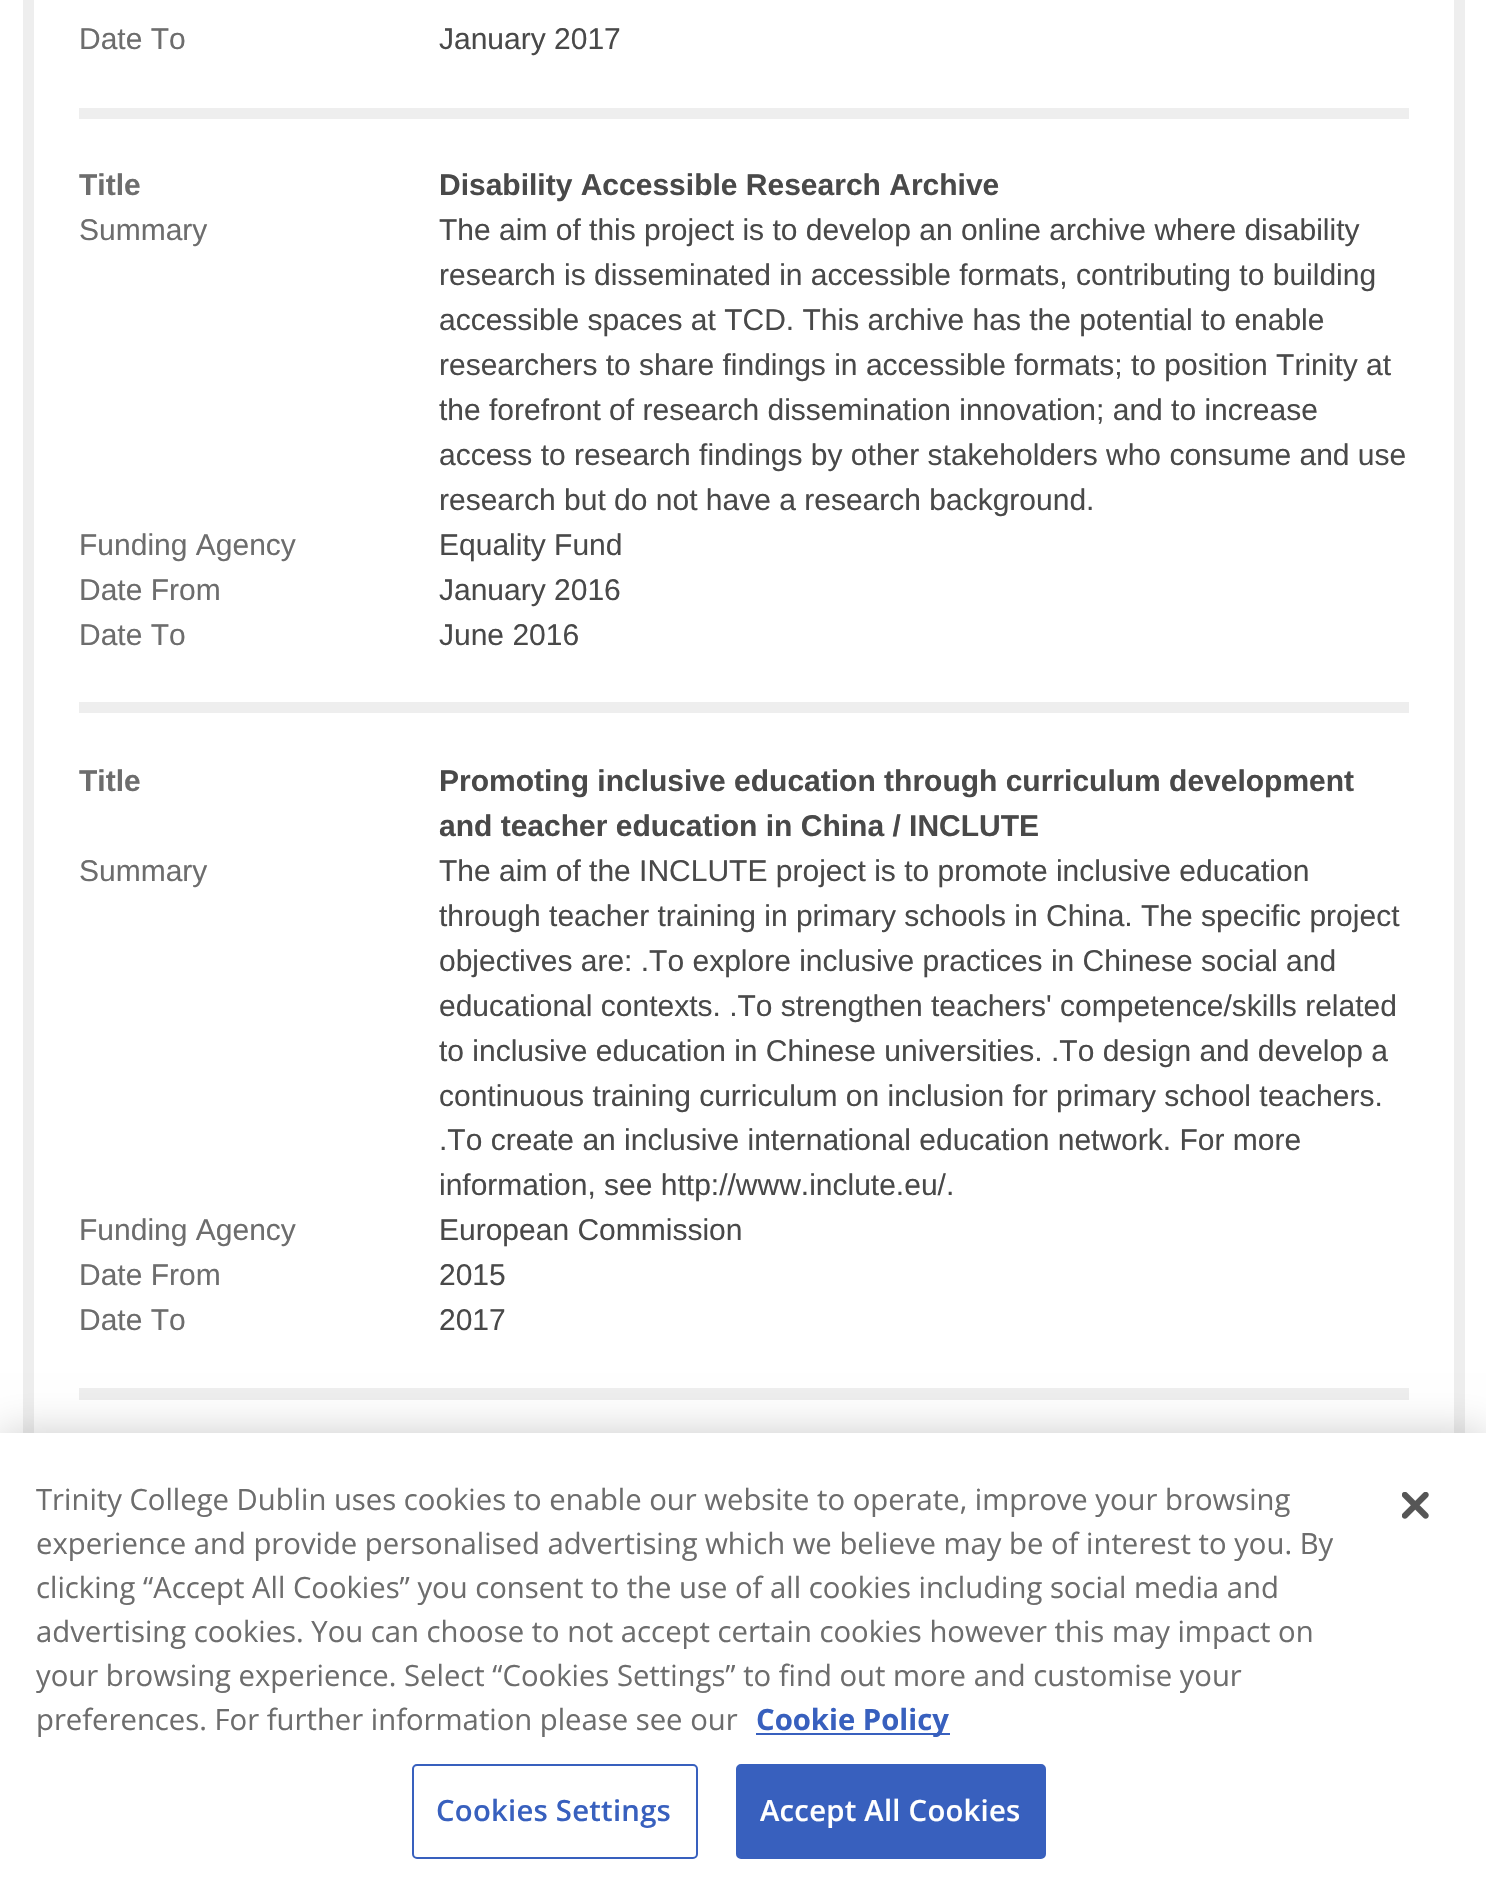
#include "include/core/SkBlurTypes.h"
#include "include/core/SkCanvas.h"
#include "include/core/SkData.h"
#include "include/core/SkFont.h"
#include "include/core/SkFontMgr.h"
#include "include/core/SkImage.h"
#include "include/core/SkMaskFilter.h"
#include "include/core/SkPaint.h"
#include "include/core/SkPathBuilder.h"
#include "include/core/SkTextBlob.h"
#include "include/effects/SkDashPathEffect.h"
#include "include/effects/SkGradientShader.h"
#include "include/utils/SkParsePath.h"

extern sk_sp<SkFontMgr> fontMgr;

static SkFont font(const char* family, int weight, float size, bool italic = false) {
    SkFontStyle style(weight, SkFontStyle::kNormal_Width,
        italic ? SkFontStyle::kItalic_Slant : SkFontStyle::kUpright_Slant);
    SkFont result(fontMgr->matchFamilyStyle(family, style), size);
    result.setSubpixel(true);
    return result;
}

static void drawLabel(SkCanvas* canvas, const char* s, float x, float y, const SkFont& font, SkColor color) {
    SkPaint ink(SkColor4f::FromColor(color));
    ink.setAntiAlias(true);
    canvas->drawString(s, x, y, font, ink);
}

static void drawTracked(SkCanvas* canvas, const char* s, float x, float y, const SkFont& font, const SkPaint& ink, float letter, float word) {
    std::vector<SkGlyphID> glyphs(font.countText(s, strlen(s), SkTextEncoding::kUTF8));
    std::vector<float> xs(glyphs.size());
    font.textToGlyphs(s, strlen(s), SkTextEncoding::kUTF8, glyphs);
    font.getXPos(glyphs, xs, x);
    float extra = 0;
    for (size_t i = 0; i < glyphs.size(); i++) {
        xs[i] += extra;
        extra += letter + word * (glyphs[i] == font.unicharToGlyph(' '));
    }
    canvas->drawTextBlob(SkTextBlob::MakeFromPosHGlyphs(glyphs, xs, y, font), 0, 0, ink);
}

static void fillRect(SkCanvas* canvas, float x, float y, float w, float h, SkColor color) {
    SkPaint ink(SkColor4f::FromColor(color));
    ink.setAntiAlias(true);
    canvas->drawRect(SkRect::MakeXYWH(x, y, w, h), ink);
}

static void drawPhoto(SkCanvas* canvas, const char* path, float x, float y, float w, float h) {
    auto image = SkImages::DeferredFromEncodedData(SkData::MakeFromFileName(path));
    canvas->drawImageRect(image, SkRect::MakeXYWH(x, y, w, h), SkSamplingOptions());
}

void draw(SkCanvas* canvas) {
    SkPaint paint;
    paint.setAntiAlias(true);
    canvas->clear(0xFFFFFFFF);
    fillRect(canvas, 1454, 0, 11, 1433, 0xFFEEEEEE);
    fillRect(canvas, 23, 0, 11, 1433, 0xFFEEEEEE);
    fillRect(canvas, 79, 108, 1330, 11, 0xFFEEEEEE);
    SkFont font1 = font("Liberation Sans", 400, 30);
    drawLabel(canvas, "Date To", 79, 49, font1, 0xFF6D6D6D);
    drawLabel(canvas, "January 2017", 439, 49, font1, 0xFF494949);
    fillRect(canvas, 79, 702, 1330, 11, 0xFFEEEEEE);
    SkFont font2 = font("Liberation Sans", 700, 30);
    drawLabel(canvas, "Title", 79, 195, font2, 0xFF6D6D6D);
    drawLabel(canvas, "Disability Accessible Research Archive", 439, 195, font2, 0xFF494949);
    drawLabel(canvas, "Summary", 79, 240, font1, 0xFF6D6D6D);
    drawLabel(canvas, "The aim of this project is to develop an online archive where disability", 439, 240, font1, 0xFF494949);
    drawLabel(canvas, "research is disseminated in accessible formats, contributing to building", 439, 285, font1, 0xFF494949);
    drawLabel(canvas, "accessible spaces at TCD. This archive has the potential to enable", 439, 330, font1, 0xFF494949);
    drawLabel(canvas, "researchers to share findings in accessible formats; to position Trinity at", 439, 375, font1, 0xFF494949);
    drawLabel(canvas, "the forefront of research dissemination innovation; and to increase", 439, 420, font1, 0xFF494949);
    drawLabel(canvas, "access to research findings by other stakeholders who consume and use", 439, 465, font1, 0xFF494949);
    drawLabel(canvas, "research but do not have a research background.", 439, 510, font1, 0xFF494949);
    drawLabel(canvas, "Funding Agency", 79, 555, font1, 0xFF6D6D6D);
    drawLabel(canvas, "Equality Fund", 439, 555, font1, 0xFF494949);
    drawLabel(canvas, "Date From", 79, 600, font1, 0xFF6D6D6D);
    drawLabel(canvas, "January 2016", 439, 600, font1, 0xFF494949);
    drawLabel(canvas, "Date To", 79, 645, font1, 0xFF6D6D6D);
    drawLabel(canvas, "June 2016", 439, 645, font1, 0xFF494949);
    fillRect(canvas, 79, 1388, 1330, 12, 0xFFEEEEEE);
    drawLabel(canvas, "Title", 79, 791, font2, 0xFF6D6D6D);
    drawLabel(canvas, "Promoting inclusive education through curriculum development", 439, 791, font2, 0xFF494949);
    drawLabel(canvas, "and teacher education in China / INCLUTE", 439, 836, font2, 0xFF494949);
    drawLabel(canvas, "Summary", 79, 881, font1, 0xFF6D6D6D);
    drawLabel(canvas, "The aim of the INCLUTE project is to promote inclusive education", 439, 881, font1, 0xFF494949);
    drawLabel(canvas, "through teacher training in primary schools in China. The specific project", 439, 926, font1, 0xFF494949);
    drawLabel(canvas, "objectives are: .To explore inclusive practices in Chinese social and", 439, 971, font1, 0xFF494949);
    drawLabel(canvas, "educational contexts. .To strengthen teachers' competence/skills related", 439, 1016, font1, 0xFF494949);
    drawLabel(canvas, "to inclusive education in Chinese universities. .To design and develop a", 439, 1061, font1, 0xFF494949);
    drawLabel(canvas, "continuous training curriculum on inclusion for primary school teachers.", 439, 1106, font1, 0xFF494949);
    drawLabel(canvas, ".To create an inclusive international education network. For more", 439, 1150, font1, 0xFF494949);
    drawLabel(canvas, "information, see http://www.inclute.eu/.", 439, 1195, font1, 0xFF494949);
    drawLabel(canvas, "Funding Agency", 79, 1240, font1, 0xFF6D6D6D);
    drawLabel(canvas, "European Commission", 439, 1240, font1, 0xFF494949);
    drawLabel(canvas, "Date From", 79, 1285, font1, 0xFF6D6D6D);
    drawLabel(canvas, "2015", 439, 1285, font1, 0xFF494949);
    drawLabel(canvas, "Date To", 79, 1330, font1, 0xFF6D6D6D);
    drawLabel(canvas, "2017", 439, 1330, font1, 0xFF494949);
    paint.setColor(0x33000000);
    paint.setMaskFilter(SkMaskFilter::MakeBlur(kNormal_SkBlurStyle, 20));
    canvas->drawRect(SkRect::MakeXYWH(0, 1433, 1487, 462), paint);
    paint.setMaskFilter(nullptr);
    fillRect(canvas, 0, 1433, 1486, 461, 0xFFFFFFFF);
    SkFont font3 = font("Open Sans", 400, 29.25f);
    drawLabel(canvas, "Trinity College Dublin uses cookies to enable our website to operate, improve your browsing", 36, 1510, font3, 0xFF6D6D6D);
    drawLabel(canvas, "experience and provide personalised advertising which we believe may be of interest to you. By", 36, 1554, font3, 0xFF6D6D6D);
    drawLabel(canvas, "clicking “Accept All Cookies” you consent to the use of all cookies including social media and", 36, 1598, font3, 0xFF6D6D6D);
    drawLabel(canvas, "advertising cookies. You can choose to not accept certain cookies however this may impact on", 36, 1642, font3, 0xFF6D6D6D);
    drawLabel(canvas, "your browsing experience. Select “Cookies Settings” to find out more and customise your", 36, 1686, font3, 0xFF6D6D6D);
    drawLabel(canvas, "preferences. For further information please see our", 36, 1730, font3, 0xFF6D6D6D);
    fillRect(canvas, 756, 1733, 194, 2, 0xFF3860BE);
    SkFont font4 = font("Open Sans", 700, 29.25f);
    drawLabel(canvas, "Cookie Policy", 756, 1730, font4, 0xFF3860BE);
    paint.setStroke(true);
    paint.setStrokeWidth(2);
    paint.setColor(0xFF3860BE);
    canvas->drawRoundRect(SkRect::MakeXYWH(413, 1765, 284, 93), 4, 4, paint);
    SkFont font5 = font("Open Sans", 600, 29.25f);
    paint.setStroke(false);
    drawTracked(canvas, "Cookies Settings", 436, 1821, font5, paint, 0.25f, 0);
    canvas->drawRoundRect(SkRect::MakeXYWH(737, 1765, 308, 93), 4, 4, paint);
    paint.setStroke(true);
    canvas->drawRoundRect(SkRect::MakeXYWH(737, 1765, 308, 93), 4, 4, paint);
    paint.setStroke(false);
    paint.setColor(0xFFFFFFFF);
    drawTracked(canvas, "Accept All Cookies", 760, 1821, font5, paint, 0.25f, 0);
    drawPhoto(canvas, "assets/img1.png", 1402, 1492, 27, 27);
}
